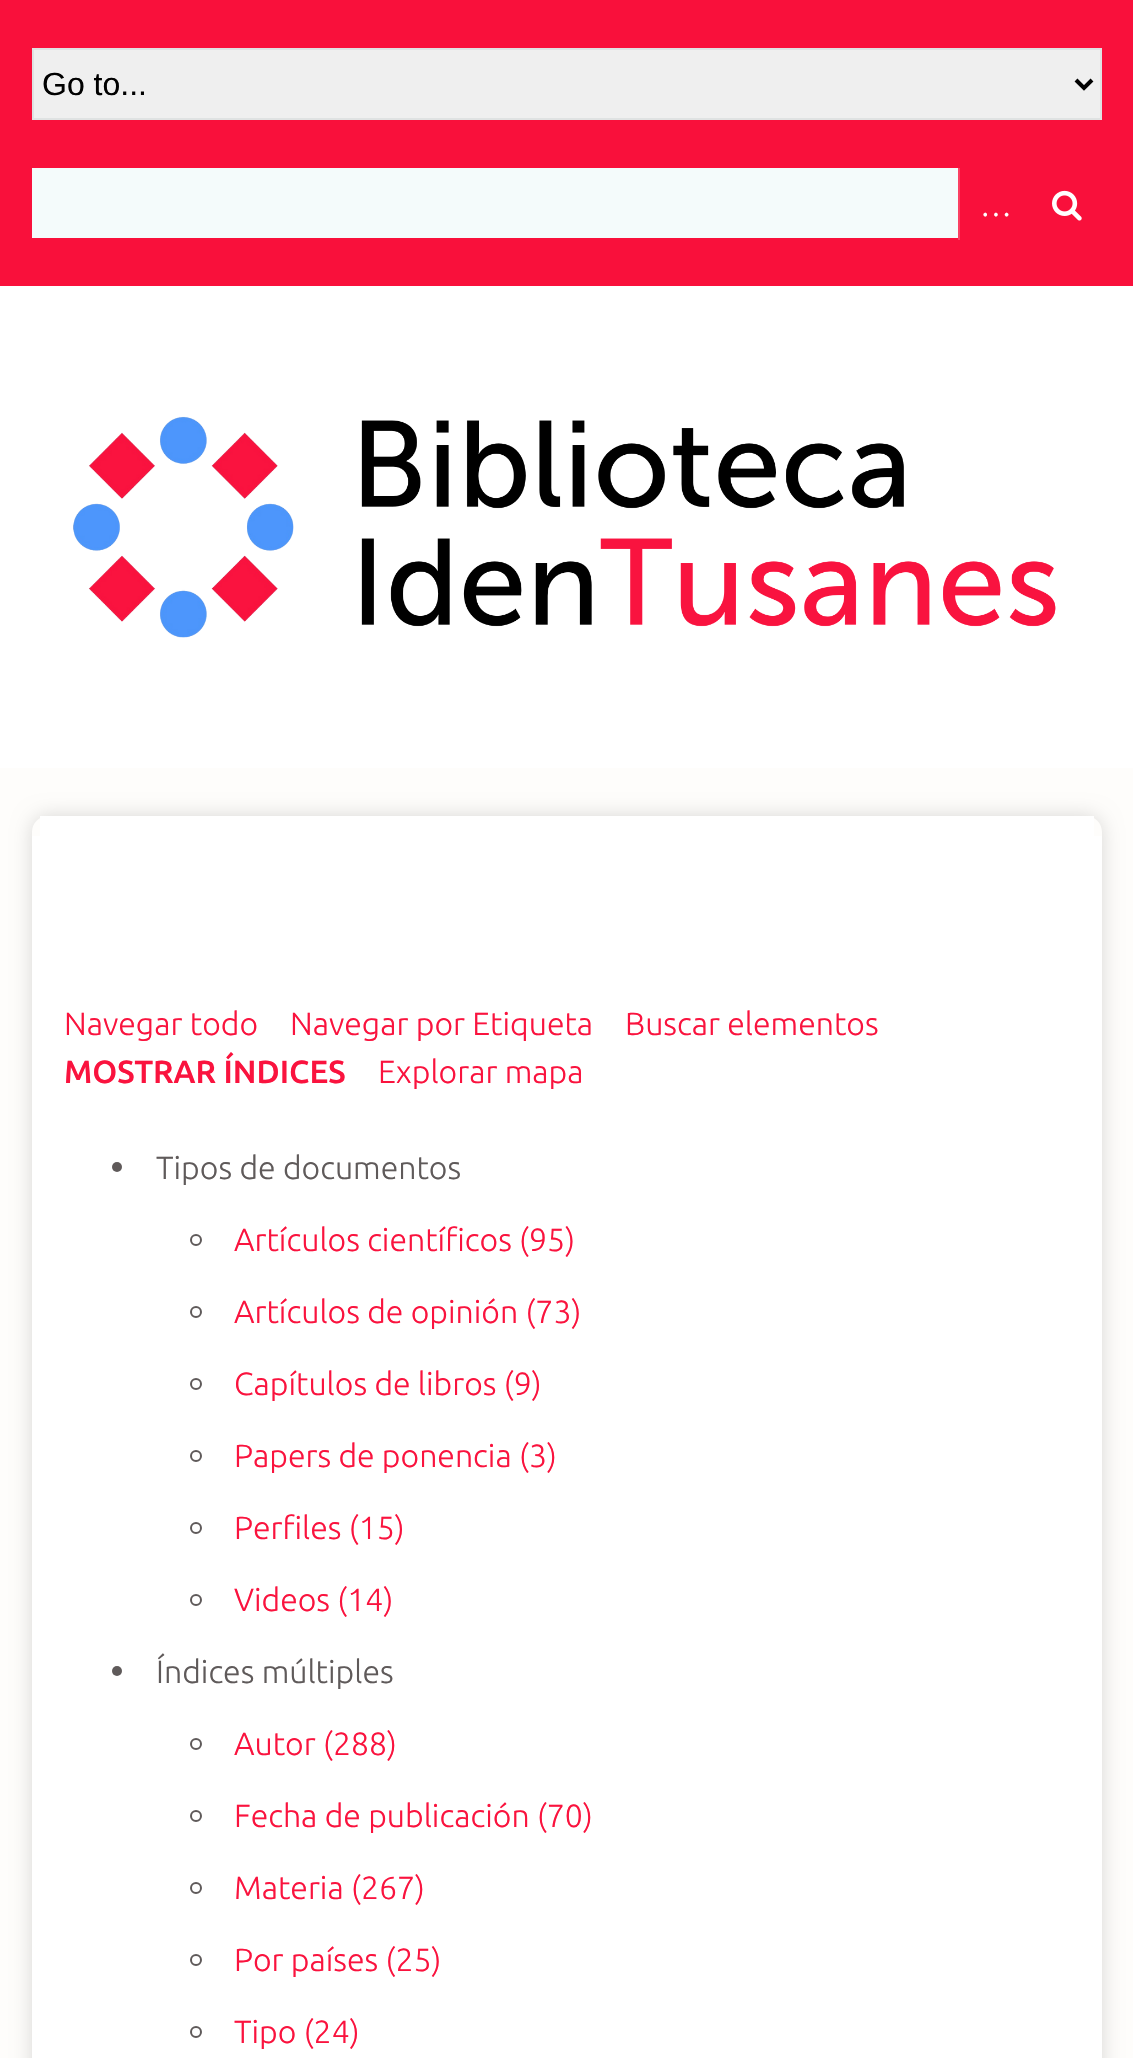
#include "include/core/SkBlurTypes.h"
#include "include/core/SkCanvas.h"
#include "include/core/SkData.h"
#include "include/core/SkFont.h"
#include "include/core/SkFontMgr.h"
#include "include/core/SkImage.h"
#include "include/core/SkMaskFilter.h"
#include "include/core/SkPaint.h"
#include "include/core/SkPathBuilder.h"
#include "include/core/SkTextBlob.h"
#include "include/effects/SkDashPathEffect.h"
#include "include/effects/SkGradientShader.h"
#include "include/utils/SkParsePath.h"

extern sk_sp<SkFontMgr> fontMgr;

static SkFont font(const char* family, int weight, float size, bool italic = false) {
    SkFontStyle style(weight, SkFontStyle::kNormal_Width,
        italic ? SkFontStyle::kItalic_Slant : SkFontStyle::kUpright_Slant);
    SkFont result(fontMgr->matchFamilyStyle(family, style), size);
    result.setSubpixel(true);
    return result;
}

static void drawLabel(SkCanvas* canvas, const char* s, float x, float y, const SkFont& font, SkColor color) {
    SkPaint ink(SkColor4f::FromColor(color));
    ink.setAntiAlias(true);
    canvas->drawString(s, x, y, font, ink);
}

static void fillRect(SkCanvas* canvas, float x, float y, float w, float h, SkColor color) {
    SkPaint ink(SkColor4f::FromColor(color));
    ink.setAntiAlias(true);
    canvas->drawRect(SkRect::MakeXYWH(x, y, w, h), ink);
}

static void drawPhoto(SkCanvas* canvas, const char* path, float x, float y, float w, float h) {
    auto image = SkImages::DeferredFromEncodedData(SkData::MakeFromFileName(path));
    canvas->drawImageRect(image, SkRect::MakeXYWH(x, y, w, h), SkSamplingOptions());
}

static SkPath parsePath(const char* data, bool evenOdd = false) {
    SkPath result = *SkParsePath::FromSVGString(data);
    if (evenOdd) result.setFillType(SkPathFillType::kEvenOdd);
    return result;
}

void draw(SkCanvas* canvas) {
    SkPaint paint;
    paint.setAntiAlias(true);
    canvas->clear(0xFFF9103B);
    paint.setColor(0xFFEFEFEF);
    canvas->drawRect(SkRect::MakeXYWH(33, 49, 1068, 70), paint);
    paint.setStroke(true);
    paint.setStrokeWidth(2);
    paint.setColor(0xFFDFE2E2);
    canvas->drawRect(SkRect::MakeXYWH(33, 49, 1068, 70), paint);
    paint.setStrokeWidth(4);
    paint.setColor(0xFF000000);
    canvas->drawPath(parsePath("M1076 80L1084 88L1092 80"), paint);
    SkFont font1 = font("Liberation Sans", 400, 32);
    drawLabel(canvas, "Go to...", 42, 95, font1, 0xFF000000);
    fillRect(canvas, 32, 168, 926, 70, 0xFFF4FBFB);
    fillRect(canvas, 958, 168, 2, 72, 0xFFFA4062);
    SkFont font2 = font("Ubuntu", 300, 32);
    drawLabel(canvas, "…", 980, 216, font2, 0xFFFFFFFF);
    drawPhoto(canvas, "assets/img1.png", 1052, 190, 30, 31);
    fillRect(canvas, 0, 286, 1133, 482, 0xFFFFFFFF);
    drawPhoto(canvas, "assets/img2.png", 73, 416, 983, 222);
    fillRect(canvas, 0, 768, 1133, 1290, 0xFFFEFDFB);
    canvas->save();
    canvas->clipPath(parsePath("M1 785H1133V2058H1ZM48 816H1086C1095 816 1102 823 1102 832V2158C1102 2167 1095 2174 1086 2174H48C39 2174 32 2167 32 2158V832C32 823 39 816 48 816Z", true), true);
    paint.setStroke(false);
    paint.setColor(0x26000000);
    paint.setMaskFilter(SkMaskFilter::MakeBlur(kNormal_SkBlurStyle, 10));
    canvas->drawRoundRect(SkRect::MakeXYWH(32, 816, 1070, 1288), 16, 16, paint);
    paint.setMaskFilter(nullptr);
    canvas->restore();
    paint.setColor(0xFFFFFFFF);
    canvas->drawPath(parsePath("M48 836H1102V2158C1102 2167 1095 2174 1086 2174H48C39 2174 32 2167 32 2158V836Z"), paint);
    fillRect(canvas, 40, 816, 1054, 20, 0xFFFFFFFF);
    drawLabel(canvas, "Navegar todo", 64, 1035, font2, 0xFFFA133E);
    drawLabel(canvas, "Navegar por Etiqueta", 290, 1035, font2, 0xFFFA133E);
    drawLabel(canvas, "Buscar elementos", 625, 1035, font2, 0xFFFA133E);
    SkFont font3 = font("Ubuntu", 500, 32);
    drawLabel(canvas, "MOSTRAR ÍNDICES", 64, 1083, font3, 0xFFFA133E);
    drawLabel(canvas, "Explorar mapa", 378, 1083, font2, 0xFFFA133E);
    paint.setColor(0xFF5F5A5A);
    canvas->drawCircle(117, 1167, 5, paint);
    drawLabel(canvas, "Tipos de documentos", 156, 1179, font2, 0xFF5F5A5A);
    paint.setStroke(true);
    paint.setStrokeWidth(2);
    canvas->drawCircle(196, 1240, 5, paint);
    drawLabel(canvas, "Artículos científicos (95)", 234, 1251, font2, 0xFFFA133E);
    canvas->drawCircle(196, 1312, 5, paint);
    drawLabel(canvas, "Artículos de opinión (73)", 234, 1323, font2, 0xFFFA133E);
    canvas->drawCircle(196, 1384, 5, paint);
    drawLabel(canvas, "Capítulos de libros (9)", 234, 1395, font2, 0xFFFA133E);
    canvas->drawCircle(196, 1456, 5, paint);
    drawLabel(canvas, "Papers de ponencia (3)", 234, 1467, font2, 0xFFFA133E);
    canvas->drawCircle(196, 1528, 5, paint);
    drawLabel(canvas, "Perfiles (15)", 234, 1539, font2, 0xFFFA133E);
    canvas->drawCircle(196, 1600, 5, paint);
    drawLabel(canvas, "Videos (14)", 234, 1611, font2, 0xFFFA133E);
    paint.setStroke(false);
    canvas->drawCircle(117, 1671, 5, paint);
    drawLabel(canvas, "Índices múltiples", 156, 1683, font2, 0xFF5F5A5A);
    paint.setStroke(true);
    canvas->drawCircle(196, 1744, 5, paint);
    drawLabel(canvas, "Autor (288)", 234, 1755, font2, 0xFFFA133E);
    canvas->drawCircle(196, 1816, 5, paint);
    drawLabel(canvas, "Fecha de publicación (70)", 234, 1827, font2, 0xFFFA133E);
    canvas->drawCircle(196, 1888, 5, paint);
    drawLabel(canvas, "Materia (267)", 234, 1899, font2, 0xFFFA133E);
    canvas->drawCircle(196, 1960, 5, paint);
    drawLabel(canvas, "Por países (25)", 234, 1971, font2, 0xFFFA133E);
    canvas->drawCircle(196, 2032, 5, paint);
    drawLabel(canvas, "Tipo (24)", 234, 2043, font2, 0xFFFA133E);
}
